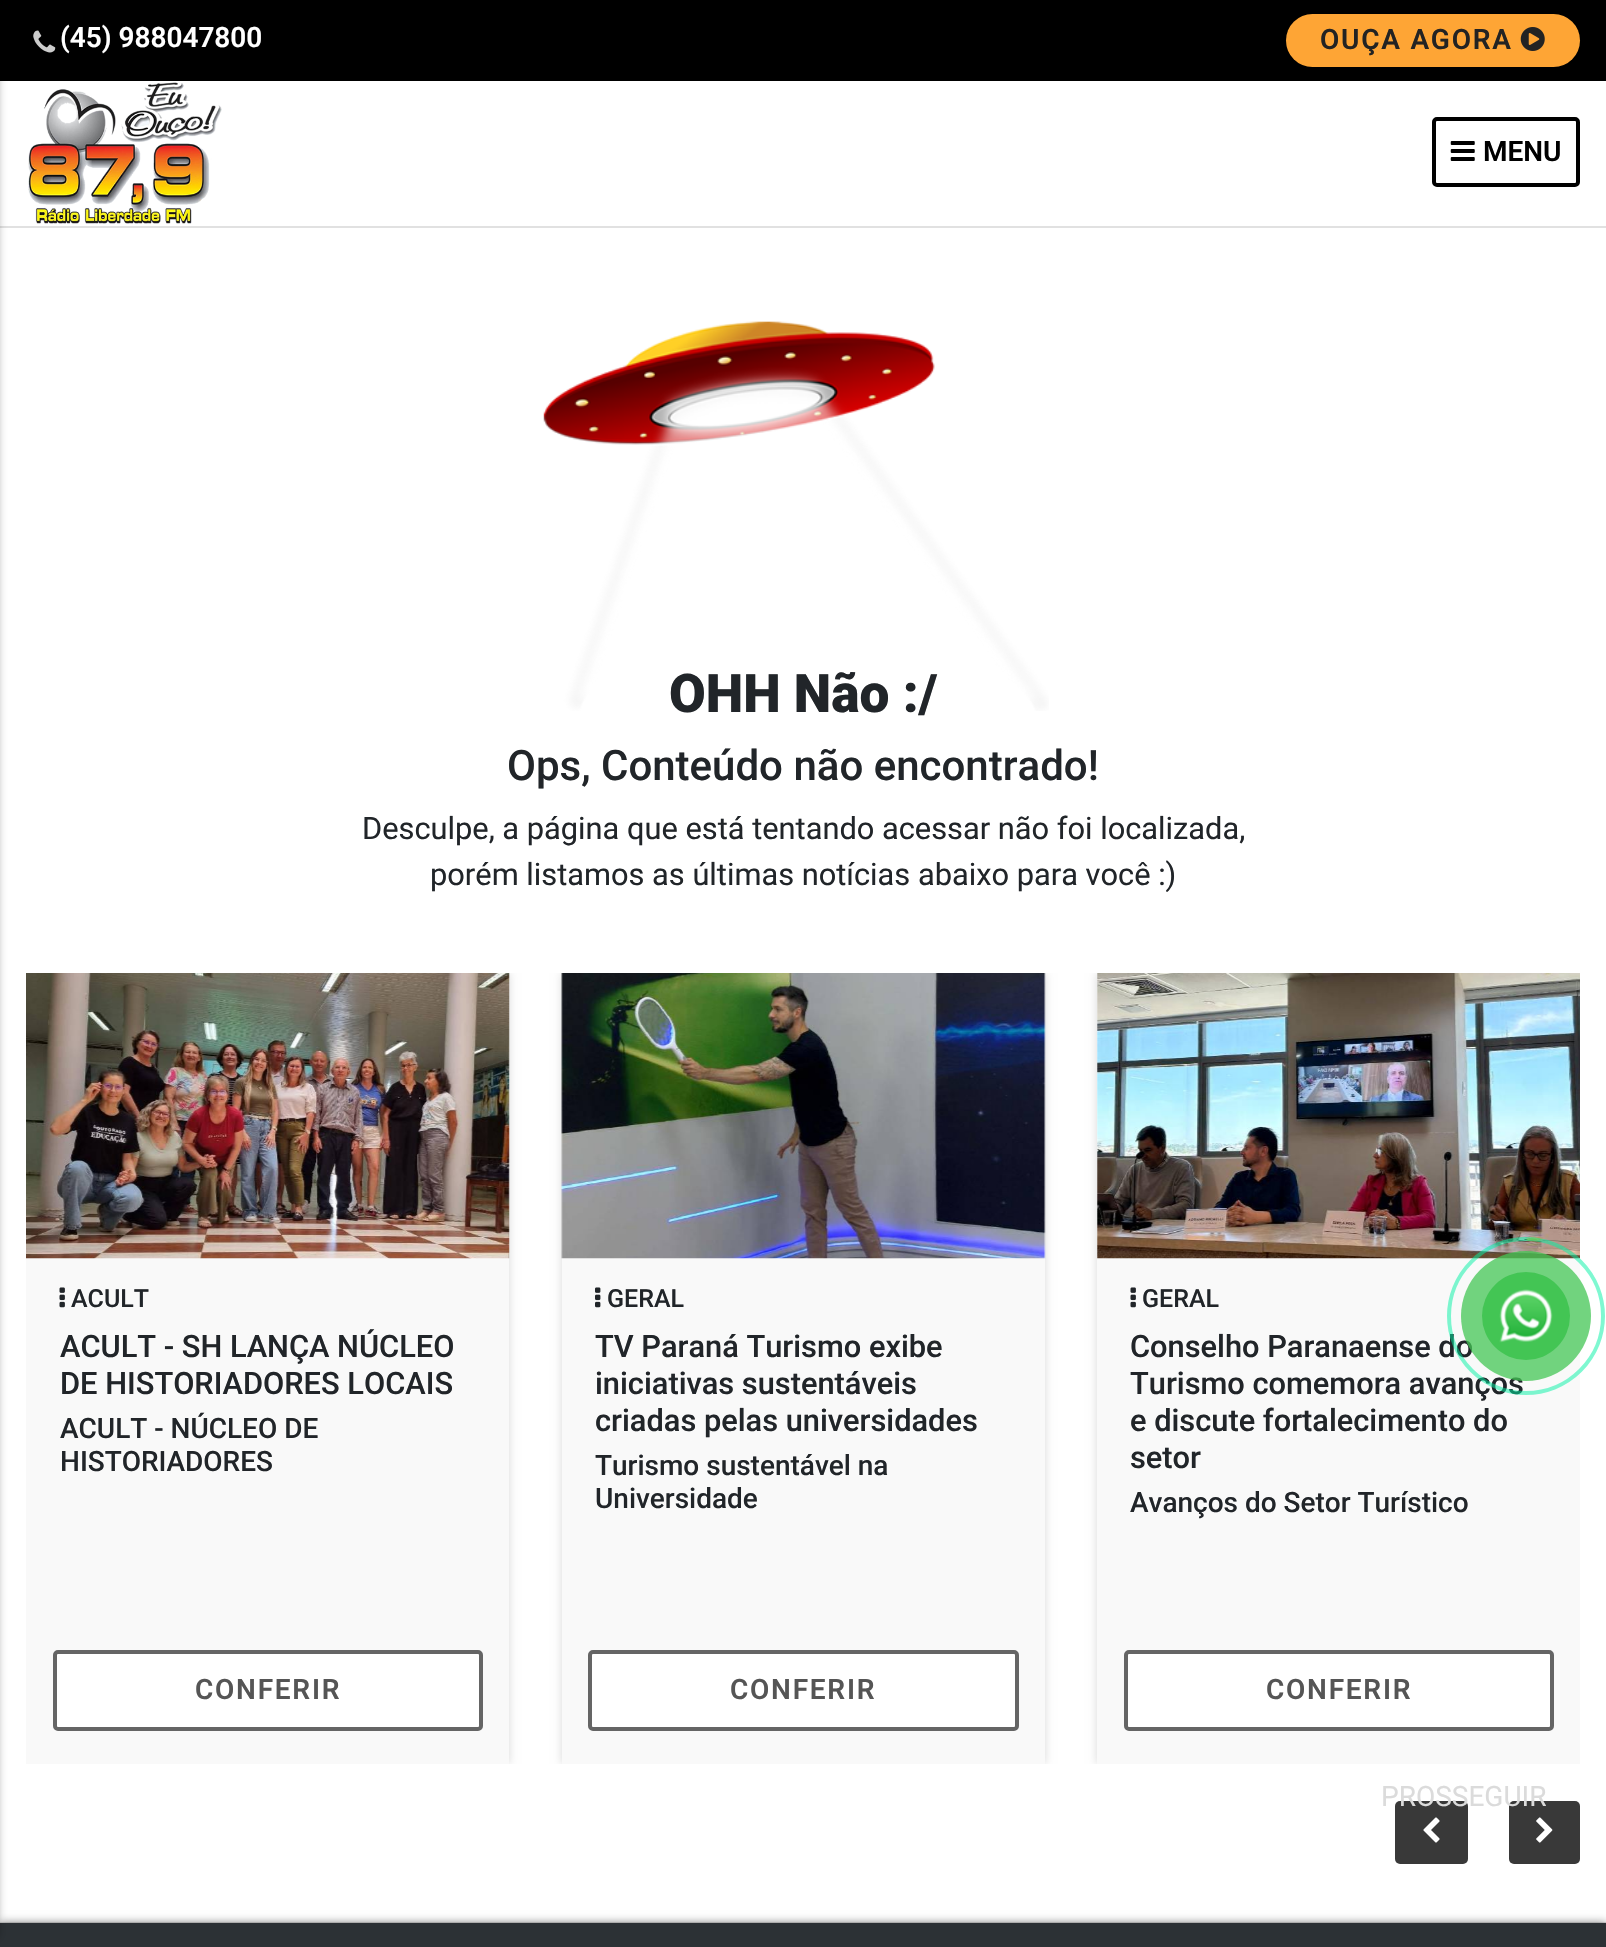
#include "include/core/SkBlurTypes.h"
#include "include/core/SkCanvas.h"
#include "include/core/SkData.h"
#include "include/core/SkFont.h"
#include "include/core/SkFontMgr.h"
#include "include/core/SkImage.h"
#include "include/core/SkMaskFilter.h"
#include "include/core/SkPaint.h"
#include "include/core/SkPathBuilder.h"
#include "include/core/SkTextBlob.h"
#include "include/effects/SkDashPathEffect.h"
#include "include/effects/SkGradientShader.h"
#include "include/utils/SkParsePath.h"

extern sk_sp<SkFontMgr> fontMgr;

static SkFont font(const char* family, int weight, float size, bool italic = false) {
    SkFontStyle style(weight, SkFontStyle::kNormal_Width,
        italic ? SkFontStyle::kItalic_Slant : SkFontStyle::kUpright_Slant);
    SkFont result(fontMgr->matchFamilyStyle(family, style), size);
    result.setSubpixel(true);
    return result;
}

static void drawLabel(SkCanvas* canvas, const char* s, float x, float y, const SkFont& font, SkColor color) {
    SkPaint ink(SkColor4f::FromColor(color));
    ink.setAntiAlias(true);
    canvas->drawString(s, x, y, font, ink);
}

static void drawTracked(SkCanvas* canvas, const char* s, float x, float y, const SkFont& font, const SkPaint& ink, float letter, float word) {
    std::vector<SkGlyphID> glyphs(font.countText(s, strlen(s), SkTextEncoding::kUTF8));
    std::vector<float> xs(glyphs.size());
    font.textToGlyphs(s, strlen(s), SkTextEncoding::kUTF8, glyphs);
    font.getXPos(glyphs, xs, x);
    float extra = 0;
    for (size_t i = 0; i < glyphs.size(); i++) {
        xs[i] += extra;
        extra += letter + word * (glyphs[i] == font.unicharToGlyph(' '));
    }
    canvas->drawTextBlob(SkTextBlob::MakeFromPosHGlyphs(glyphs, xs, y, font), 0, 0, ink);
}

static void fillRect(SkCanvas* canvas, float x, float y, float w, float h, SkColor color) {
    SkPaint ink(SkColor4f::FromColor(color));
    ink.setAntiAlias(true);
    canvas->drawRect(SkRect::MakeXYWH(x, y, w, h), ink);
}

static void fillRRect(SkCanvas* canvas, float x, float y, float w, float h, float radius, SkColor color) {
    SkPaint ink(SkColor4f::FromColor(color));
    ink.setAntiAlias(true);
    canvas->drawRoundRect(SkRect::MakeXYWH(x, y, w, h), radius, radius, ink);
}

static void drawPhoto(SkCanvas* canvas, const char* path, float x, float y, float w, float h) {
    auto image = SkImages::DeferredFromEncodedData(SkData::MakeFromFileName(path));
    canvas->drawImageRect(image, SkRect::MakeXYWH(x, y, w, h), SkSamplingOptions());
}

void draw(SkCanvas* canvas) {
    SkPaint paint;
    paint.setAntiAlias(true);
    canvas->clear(0xFFFFFFFF);
    fillRect(canvas, 0, 226, 1606, 2, 0xFFE1E1E1);
    fillRect(canvas, 0, 1922, 1606, 1, 0xFFE1E1E1);
    paint.setColor(0x80000000);
    paint.setMaskFilter(SkMaskFilter::MakeBlur(kNormal_SkBlurStyle, 4.5f));
    canvas->drawRect(SkRect::MakeXYWH(0, 1923, 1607, 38), paint);
    paint.setMaskFilter(nullptr);
    {
        const SkColor colors[] = {0xFF2C3135, 0xFF333333};
        const float stops[] = {0, 1};
        const SkPoint ends[] = {{803, 1923}, {803, 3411}};
        paint.setShader(SkGradientShader::MakeLinear(ends, colors, stops, 2, SkTileMode::kClamp));
        paint.setAlpha(255);
    }
    canvas->drawRect(SkRect::MakeXYWH(0, 1923, 1606, 24), paint);
    paint.setShader(nullptr);
    paint.setColor(0x59000000);
    paint.setMaskFilter(SkMaskFilter::MakeBlur(kNormal_SkBlurStyle, 4.5f));
    canvas->drawRect(SkRect::MakeXYWH(-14, 11, 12, 1926), paint);
    paint.setMaskFilter(nullptr);
    fillRect(canvas, 0, 0, 1606, 81, 0xFF000000);
    drawPhoto(canvas, "assets/img1.png", 33, 30, 23, 23);
    SkFont font1 = font("Roboto", 600, 28);
    drawLabel(canvas, "(45) 988047800", 60, 47, font1, 0xFFFFFFFF);
    fillRRect(canvas, 1286, 14, 294, 53, 26.5f, 0xFFFEA535);
    paint.setColor(0xFF232323);
    drawTracked(canvas, "OUÇA AGORA", 1320, 49, font1, paint, 1.75f, 0);
    drawPhoto(canvas, "assets/img2.png", 1520, 27, 25, 24);
    drawPhoto(canvas, "assets/img3.png", 28, 82, 194, 142);
    paint.setStroke(true);
    paint.setStrokeWidth(4);
    paint.setColor(0xFF000000);
    canvas->drawRoundRect(SkRect::MakeXYWH(1434, 119, 144, 66), 3, 3, paint);
    drawPhoto(canvas, "assets/img4.png", 1450, 141, 25, 20);
    drawLabel(canvas, "MENU", 1483, 161, font1, 0xFF000000);
    drawPhoto(canvas, "assets/img5.png", 543, 321, 506, 390);
    SkFont font2 = font("Roboto", 900, 53.25f);
    drawLabel(canvas, "OHH Não :/", 669, 712, font2, 0xFF212529);
    SkFont font3 = font("Roboto", 500, 42);
    drawLabel(canvas, "Ops, Conteúdo não encontrado!", 507, 780, font3, 0xFF212529);
    SkFont font4 = font("Roboto", 400, 30.8f);
    drawLabel(canvas, "Desculpe, a página que está tentando acessar não foi localizada,", 362, 839, font4, 0xFF212529);
    drawLabel(canvas, "porém listamos as últimas notícias abaixo para você :)", 430, 885, font4, 0xFF212529);
    canvas->save();
    canvas->clipRect(SkRect::MakeXYWH(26, 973, 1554, 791));
    paint.setStroke(false);
    paint.setColor(0x26000000);
    paint.setMaskFilter(SkMaskFilter::MakeBlur(kNormal_SkBlurStyle, 4.5f));
    canvas->drawRect(SkRect::MakeXYWH(26, 973, 483, 791), paint);
    paint.setMaskFilter(nullptr);
    canvas->restore();
    fillRect(canvas, 26, 1258, 483, 506, 0xFFF9F9F9);
    drawPhoto(canvas, "assets/img6.png", 26, 973, 484, 286);
    drawPhoto(canvas, "assets/img7.png", 59, 1287, 6, 21);
    SkFont font5 = font("Roboto", 500, 25);
    drawLabel(canvas, "ACULT", 71, 1307, font5, 0xFF212529);
    SkFont font6 = font("Roboto", 500, 30.8f);
    drawLabel(canvas, "ACULT - SH LANÇA NÚCLEO", 60, 1357, font6, 0xFF212529);
    drawLabel(canvas, "DE HISTORIADORES LOCAIS", 60, 1394, font6, 0xFF212529);
    SkFont font7 = font("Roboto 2", 500, 28);
    drawLabel(canvas, "ACULT - NÚCLEO DE", 60, 1438, font7, 0xFF212529);
    drawLabel(canvas, "HISTORIADORES", 60, 1471, font7, 0xFF212529);
    paint.setColor(0xFFFFFFFF);
    canvas->drawRoundRect(SkRect::MakeXYWH(55, 1652, 426, 77), 3, 3, paint);
    paint.setStroke(true);
    paint.setColor(0xFF656565);
    canvas->drawRoundRect(SkRect::MakeXYWH(55, 1652, 426, 77), 3, 3, paint);
    paint.setStroke(false);
    paint.setColor(0xFF555555);
    drawTracked(canvas, "CONFERIR", 195, 1699, font1, paint, 1.75f, 0);
    canvas->save();
    canvas->clipRect(SkRect::MakeXYWH(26, 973, 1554, 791));
    paint.setColor(0x26000000);
    paint.setMaskFilter(SkMaskFilter::MakeBlur(kNormal_SkBlurStyle, 4.5f));
    canvas->drawRect(SkRect::MakeXYWH(562, 973, 483, 791), paint);
    paint.setMaskFilter(nullptr);
    canvas->restore();
    fillRect(canvas, 562, 973, 483, 791, 0xFFF9F9F9);
    drawPhoto(canvas, "assets/img8.png", 561, 973, 485, 286);
    drawPhoto(canvas, "assets/img9.png", 595, 1287, 6, 21);
    drawLabel(canvas, "GERAL", 607, 1307, font5, 0xFF212529);
    drawLabel(canvas, "TV Paraná Turismo exibe", 595, 1357, font6, 0xFF212529);
    drawLabel(canvas, "iniciativas sustentáveis", 595, 1394, font6, 0xFF212529);
    drawLabel(canvas, "criadas pelas universidades", 595, 1431, font6, 0xFF212529);
    drawLabel(canvas, "Turismo sustentável na", 595, 1475, font7, 0xFF212529);
    drawLabel(canvas, "Universidade", 595, 1508, font7, 0xFF212529);
    paint.setColor(0xFFFFFFFF);
    canvas->drawRoundRect(SkRect::MakeXYWH(590, 1652, 427, 77), 3, 3, paint);
    paint.setStroke(true);
    paint.setColor(0xFF656565);
    canvas->drawRoundRect(SkRect::MakeXYWH(590, 1652, 427, 77), 3, 3, paint);
    paint.setStroke(false);
    paint.setColor(0xFF555555);
    drawTracked(canvas, "CONFERIR", 730, 1699, font1, paint, 1.75f, 0);
    canvas->save();
    canvas->clipRect(SkRect::MakeXYWH(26, 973, 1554, 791));
    paint.setColor(0x26000000);
    paint.setMaskFilter(SkMaskFilter::MakeBlur(kNormal_SkBlurStyle, 4.5f));
    canvas->drawRect(SkRect::MakeXYWH(1097, 973, 483, 791), paint);
    paint.setMaskFilter(nullptr);
    canvas->restore();
    fillRect(canvas, 1097, 973, 483, 791, 0xFFF9F9F9);
    drawPhoto(canvas, "assets/img10.png", 1097, 973, 483, 286);
    drawPhoto(canvas, "assets/img7.png", 1130, 1287, 6, 21);
    drawLabel(canvas, "GERAL", 1142, 1307, font5, 0xFF212529);
    drawLabel(canvas, "Conselho Paranaense do", 1130, 1357, font6, 0xFF212529);
    drawLabel(canvas, "Turismo comemora avanços", 1130, 1394, font6, 0xFF212529);
    drawLabel(canvas, "e discute fortalecimento do", 1130, 1431, font6, 0xFF212529);
    drawLabel(canvas, "setor", 1130, 1468, font6, 0xFF212529);
    drawLabel(canvas, "Avanços do Setor Turístico", 1130, 1512, font7, 0xFF212529);
    paint.setColor(0xFFFFFFFF);
    canvas->drawRoundRect(SkRect::MakeXYWH(1126, 1652, 426, 77), 3, 3, paint);
    paint.setStroke(true);
    paint.setColor(0xFF656565);
    canvas->drawRoundRect(SkRect::MakeXYWH(1126, 1652, 426, 77), 3, 3, paint);
    paint.setStroke(false);
    paint.setColor(0xFF555555);
    drawTracked(canvas, "CONFERIR", 1266, 1699, font1, paint, 1.75f, 0);
    fillRRect(canvas, 1395, 1801, 73, 63, 5, 0xFF393939);
    drawPhoto(canvas, "assets/img11.png", 1423, 1817, 17, 26);
    fillRRect(canvas, 1509, 1801, 71, 63, 5, 0xFF393939);
    drawPhoto(canvas, "assets/img12.png", 1536, 1817, 17, 26);
    paint.setStroke(true);
    paint.setColor(0x8000F2A4);
    canvas->drawCircle(1526, 1316, 77, paint);
    paint.setStroke(false);
    paint.setColor(0xBF43C554);
    canvas->drawCircle(1526, 1316, 65, paint);
    paint.setColor(0xFF43C554);
    canvas->drawCircle(1526, 1316, 44, paint);
    drawPhoto(canvas, "assets/img13.png", 1499, 1289, 54, 54);
    SkFont font8 = font("Roboto", 400, 28);
    drawLabel(canvas, "PROSSEGUIR", 1381, 1806, font8, 0xFFDBDBDB);
}
